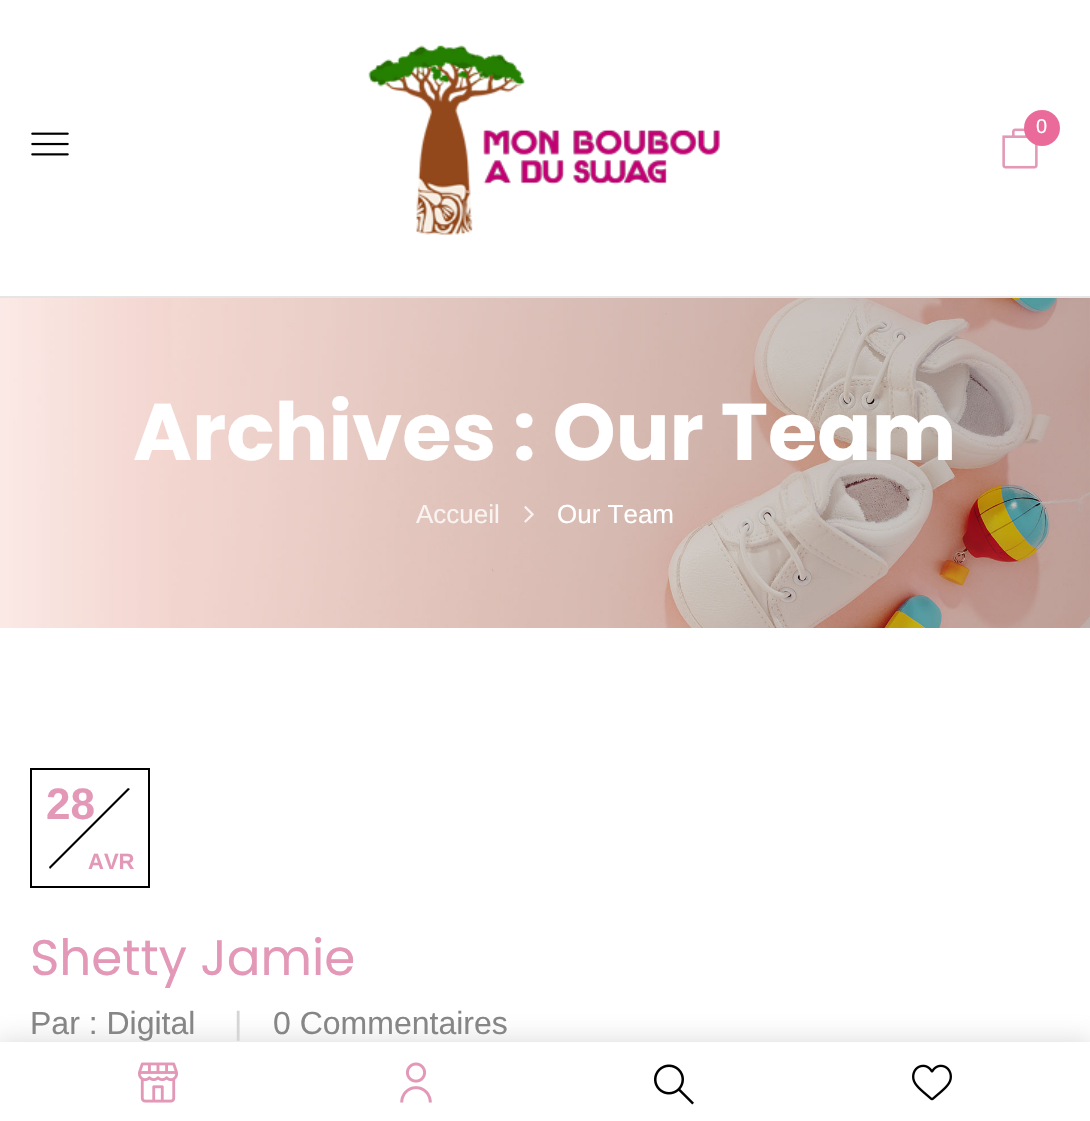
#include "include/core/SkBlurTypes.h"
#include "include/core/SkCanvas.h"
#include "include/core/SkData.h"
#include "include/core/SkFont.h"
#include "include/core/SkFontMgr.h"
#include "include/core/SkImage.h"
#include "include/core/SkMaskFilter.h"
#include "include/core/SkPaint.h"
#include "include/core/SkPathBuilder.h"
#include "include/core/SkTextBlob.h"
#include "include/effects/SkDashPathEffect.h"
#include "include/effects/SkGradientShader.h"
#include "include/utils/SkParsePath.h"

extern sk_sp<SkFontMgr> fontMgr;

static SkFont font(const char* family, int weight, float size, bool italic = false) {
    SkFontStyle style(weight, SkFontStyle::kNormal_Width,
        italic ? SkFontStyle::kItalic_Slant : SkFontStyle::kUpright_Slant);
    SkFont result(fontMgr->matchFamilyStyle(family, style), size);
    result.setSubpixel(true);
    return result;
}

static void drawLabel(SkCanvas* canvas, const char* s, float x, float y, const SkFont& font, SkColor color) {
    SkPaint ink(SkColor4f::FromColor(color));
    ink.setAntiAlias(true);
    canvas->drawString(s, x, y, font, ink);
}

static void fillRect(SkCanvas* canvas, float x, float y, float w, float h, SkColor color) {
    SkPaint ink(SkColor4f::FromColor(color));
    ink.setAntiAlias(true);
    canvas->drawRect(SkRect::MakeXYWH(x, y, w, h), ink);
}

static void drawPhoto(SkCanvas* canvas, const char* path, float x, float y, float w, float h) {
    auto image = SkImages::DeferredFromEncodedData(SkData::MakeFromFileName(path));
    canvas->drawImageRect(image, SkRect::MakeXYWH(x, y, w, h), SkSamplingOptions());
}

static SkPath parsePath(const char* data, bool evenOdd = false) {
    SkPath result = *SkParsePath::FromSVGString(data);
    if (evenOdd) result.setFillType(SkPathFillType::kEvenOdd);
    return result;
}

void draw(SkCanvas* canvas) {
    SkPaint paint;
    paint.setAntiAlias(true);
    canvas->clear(0xFFFFFFFF);
    fillRect(canvas, 0, 296, 1090, 2, 0xFFE5E5E5);
    drawPhoto(canvas, "assets/img1.png", 368, 45, 352, 190);
    drawPhoto(canvas, "assets/img2.png", 1002, 128, 36, 41);
    paint.setColor(0xFFEA6B9A);
    canvas->drawCircle(1042, 128, 18, paint);
    SkFont font1 = font("Liberation Sans", 400, 20);
    drawLabel(canvas, "0", 1036, 133, font1, 0xFFFFFFFF);
    drawPhoto(canvas, "assets/img3.png", 31, 132, 38, 24);
    paint.setColor(0x4D909090);
    paint.setMaskFilter(SkMaskFilter::MakeBlur(kNormal_SkBlurStyle, 12));
    canvas->drawRect(SkRect::MakeXYWH(-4, 1040, 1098, 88), paint);
    paint.setMaskFilter(nullptr);
    fillRect(canvas, 0, 1042, 1090, 79, 0xFFFFFFFF);
    drawPhoto(canvas, "assets/img4.png", 138, 1062, 40, 41);
    drawPhoto(canvas, "assets/img5.png", 400, 1062, 32, 41);
    drawPhoto(canvas, "assets/img6.png", 654, 1064, 40, 41);
    drawPhoto(canvas, "assets/img7.png", 912, 1064, 40, 37);
    drawPhoto(canvas, "assets/img8.png", 0, 298, 1090, 330);
    SkFont font2 = font("Poppins", 700, 80);
    drawLabel(canvas, "Archives : Our Team", 133, 460, font2, 0xFFFFFFFF);
    SkFont font3 = font("Liberation Sans", 400, 26);
    drawLabel(canvas, "Accueil", 416, 523, font3, 0xFFF9F3F1);
    drawPhoto(canvas, "assets/img9.png", 524, 506, 10, 17);
    drawLabel(canvas, "Our Team", 557, 523, font3, 0xFFFFFFFF);
    paint.setStroke(true);
    paint.setStrokeWidth(2);
    paint.setColor(0xFF000000);
    canvas->drawRect(SkRect::MakeXYWH(31, 769, 118, 118), paint);
    SkFont font4 = font("Liberation Sans", 700, 44);
    drawLabel(canvas, "28", 46, 819, font4, 0xFFE298B6);
    SkFont font5 = font("Liberation Sans", 700, 22);
    drawLabel(canvas, "AVR", 88, 869, font5, 0xFFE298B6);
    paint.setStroke(false);
    canvas->drawPath(parsePath("M49 867L128 788L130 789L50 869Z"), paint);
    SkFont font6 = font("Poppins", 400, 50);
    drawLabel(canvas, "Shetty Jamie", 30, 975, font6, 0xFFE298B6);
    SkFont font7 = font("Liberation Sans", 400, 32);
    drawLabel(canvas, "Par : Digital", 30, 1034, font7, 0xFF868686);
    drawLabel(canvas, "|", 234, 1034, font7, 0xFFD5D5D5);
    drawLabel(canvas, "0 Commentaires", 273, 1034, font7, 0xFF868686);
}
